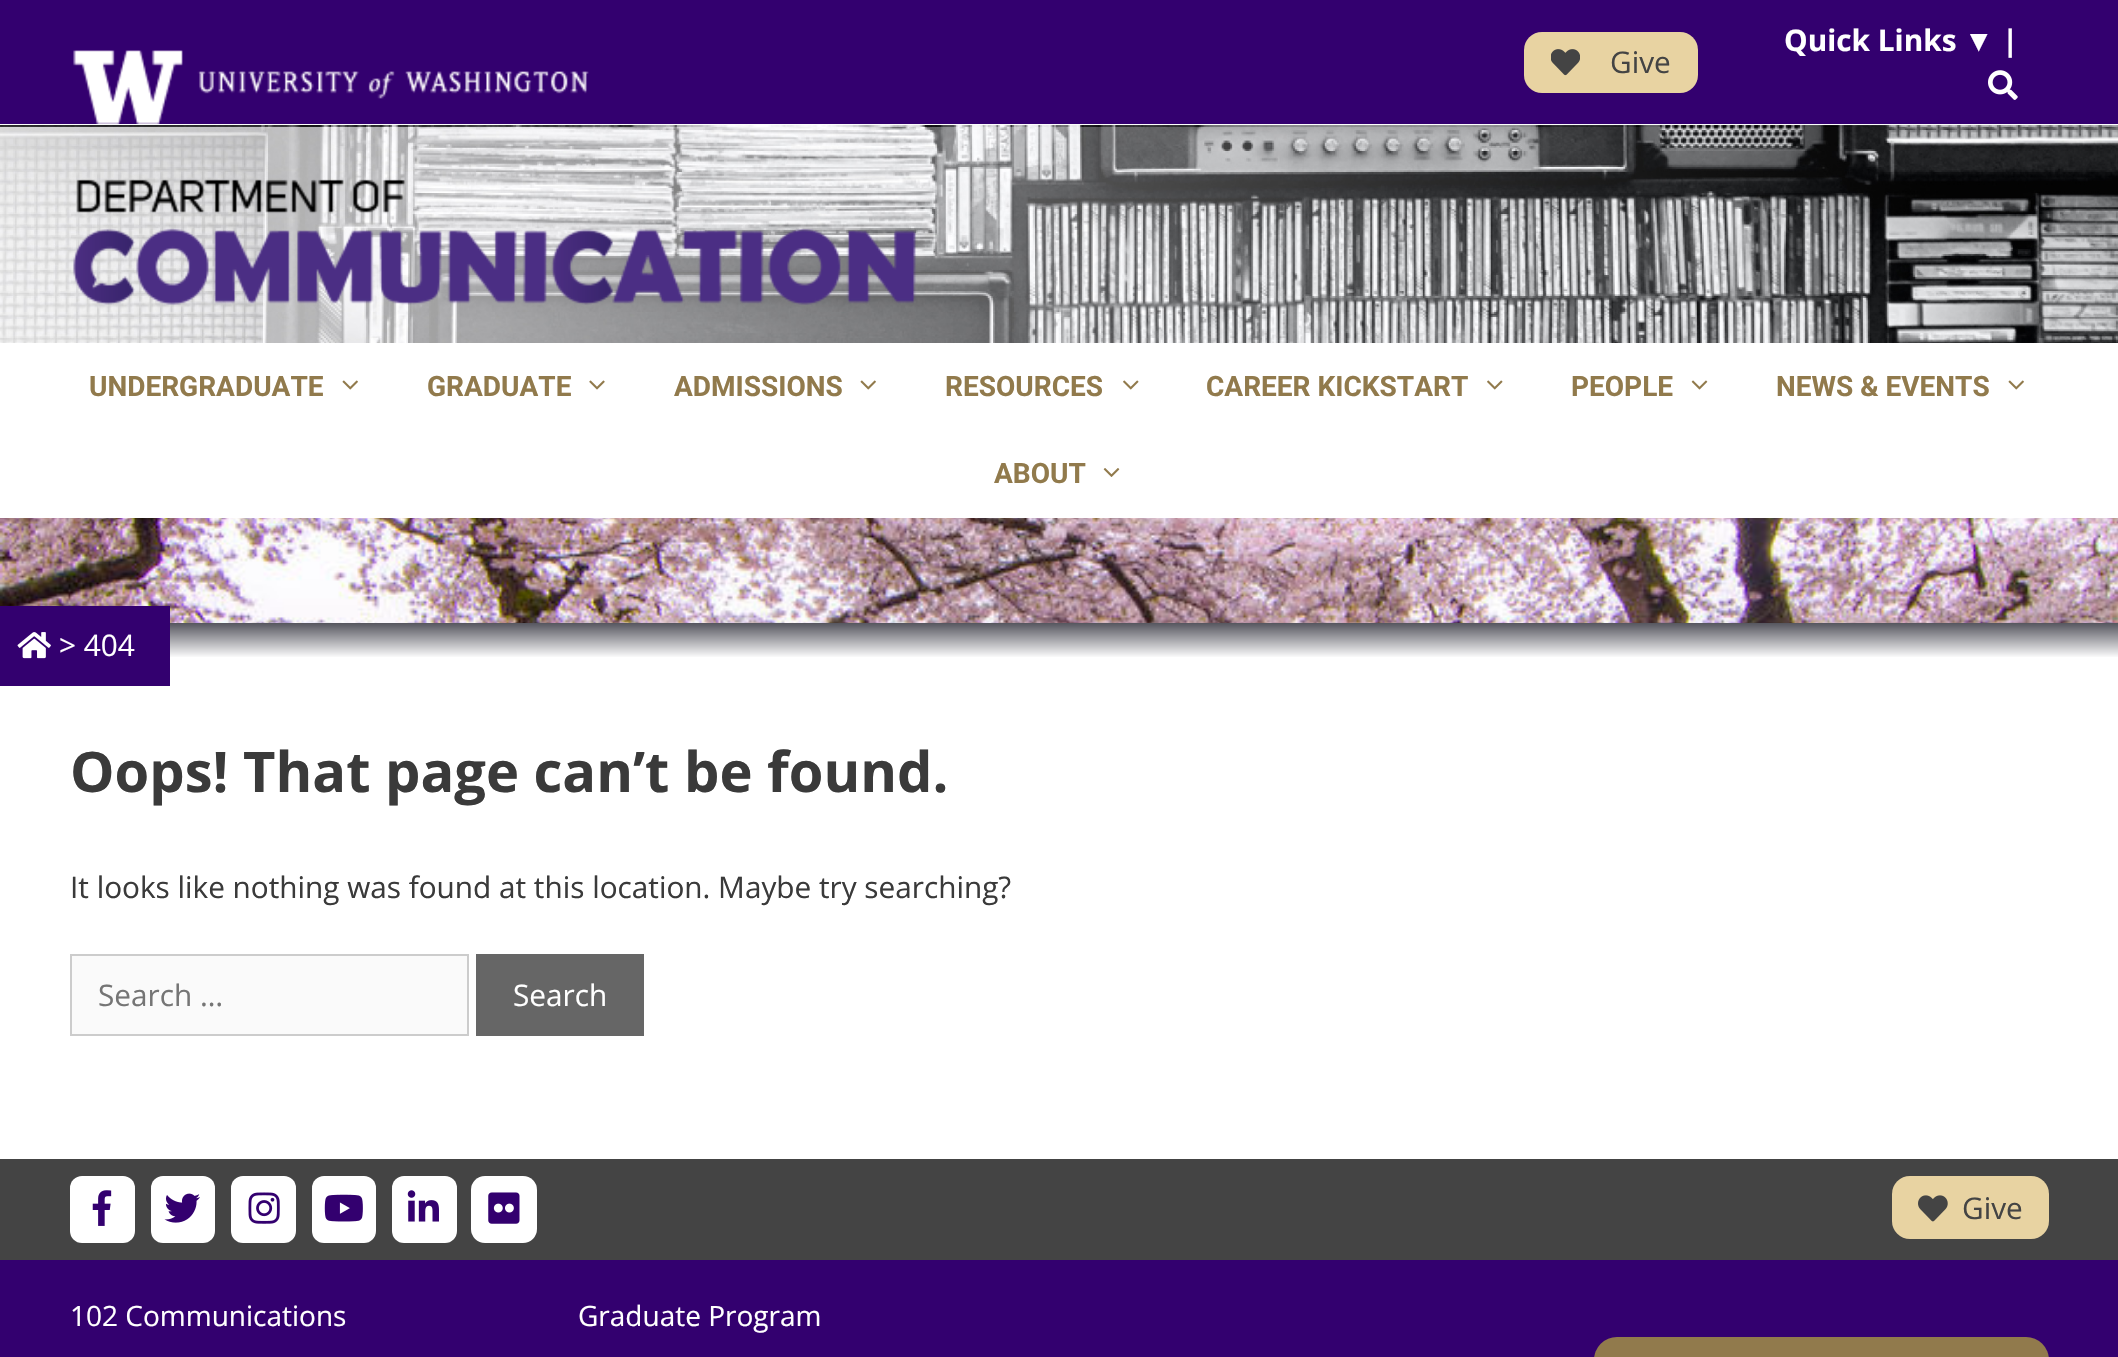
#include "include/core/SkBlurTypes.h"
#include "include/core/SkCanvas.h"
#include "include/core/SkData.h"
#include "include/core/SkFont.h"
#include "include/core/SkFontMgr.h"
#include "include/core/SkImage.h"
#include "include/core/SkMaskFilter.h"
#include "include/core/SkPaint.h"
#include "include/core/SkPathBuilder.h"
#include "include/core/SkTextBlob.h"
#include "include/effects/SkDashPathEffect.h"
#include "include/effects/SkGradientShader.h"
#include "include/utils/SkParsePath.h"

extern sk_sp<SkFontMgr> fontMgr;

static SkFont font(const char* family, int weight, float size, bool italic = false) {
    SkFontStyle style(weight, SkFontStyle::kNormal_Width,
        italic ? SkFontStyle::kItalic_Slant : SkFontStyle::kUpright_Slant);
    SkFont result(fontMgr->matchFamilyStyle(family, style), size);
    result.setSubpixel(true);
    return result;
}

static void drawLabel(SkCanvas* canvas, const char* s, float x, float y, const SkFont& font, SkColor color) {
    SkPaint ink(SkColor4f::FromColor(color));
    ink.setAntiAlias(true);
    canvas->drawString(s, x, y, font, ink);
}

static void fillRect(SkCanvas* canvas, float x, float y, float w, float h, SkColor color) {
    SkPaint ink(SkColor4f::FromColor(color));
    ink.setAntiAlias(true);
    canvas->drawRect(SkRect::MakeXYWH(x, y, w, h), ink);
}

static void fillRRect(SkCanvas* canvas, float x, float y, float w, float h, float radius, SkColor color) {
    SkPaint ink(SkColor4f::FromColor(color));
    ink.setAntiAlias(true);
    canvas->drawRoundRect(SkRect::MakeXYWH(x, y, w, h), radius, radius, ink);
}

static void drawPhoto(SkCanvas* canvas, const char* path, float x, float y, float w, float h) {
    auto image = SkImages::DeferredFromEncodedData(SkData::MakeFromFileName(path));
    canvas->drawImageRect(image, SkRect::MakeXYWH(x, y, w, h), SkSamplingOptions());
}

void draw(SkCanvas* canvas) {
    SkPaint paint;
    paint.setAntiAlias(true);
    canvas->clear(0xFFFFFFFF);
    fillRect(canvas, 0, 0, 2118, 124, 0xFF33006F);
    drawPhoto(canvas, "assets/img1.png", 73, 50, 516, 74);
    SkFont font1 = font("Open Sans", 700, 29.75f);
    drawLabel(canvas, "Quick Links", 1784, 51, font1, 0xFFFFFFFF);
    SkFont font2 = font("Liberation Sans", 700, 29.75f);
    drawLabel(canvas, "▼", 1964, 51, font2, 0xFFFFFFFF);
    drawLabel(canvas, "|", 2002, 51, font1, 0xFFFFFFFF);
    drawPhoto(canvas, "assets/img2.png", 1988, 70, 30, 30);
    fillRRect(canvas, 1524, 32, 174, 61, 18, 0xFFE8D3A2);
    drawPhoto(canvas, "assets/img3.png", 1551, 49, 29, 27);
    SkFont font3 = font("Open Sans", 400, 29.75f);
    drawLabel(canvas, "Give", 1610, 73, font3, 0xFF444444);
    drawPhoto(canvas, "assets/img4.png", 0, 124, 2118, 219);
    drawPhoto(canvas, "assets/img5.png", 73, 179, 843, 126);
    SkFont font4 = font("Roboto", 700, 28);
    drawLabel(canvas, "UNDERGRADUATE", 89, 396, font4, 0xFF917A4C);
    drawPhoto(canvas, "assets/img6.png", 342, 380, 16, 10);
    drawLabel(canvas, "GRADUATE", 427, 396, font4, 0xFF917A4C);
    drawPhoto(canvas, "assets/img7.png", 589, 380, 16, 10);
    drawLabel(canvas, "ADMISSIONS", 674, 396, font4, 0xFF917A4C);
    drawPhoto(canvas, "assets/img6.png", 860, 380, 16, 10);
    drawLabel(canvas, "RESOURCES", 945, 396, font4, 0xFF917A4C);
    drawPhoto(canvas, "assets/img8.png", 1123, 380, 16, 10);
    drawLabel(canvas, "CAREER KICKSTART", 1206, 396, font4, 0xFF917A4C);
    drawPhoto(canvas, "assets/img8.png", 1487, 380, 16, 10);
    drawLabel(canvas, "PEOPLE", 1571, 396, font4, 0xFF917A4C);
    drawPhoto(canvas, "assets/img9.png", 1691, 380, 17, 10);
    drawLabel(canvas, "NEWS & EVENTS", 1776, 396, font4, 0xFF917A4C);
    drawPhoto(canvas, "assets/img6.png", 2008, 380, 16, 10);
    drawLabel(canvas, "ABOUT", 994, 483, font4, 0xFF917A4C);
    drawPhoto(canvas, "assets/img10.png", 1103, 468, 17, 9);
    drawPhoto(canvas, "assets/img11.png", 0, 518, 2118, 105);
    {
        const SkColor colors[] = {0xFF575760, 0xFFFFFFFF};
        const float stops[] = {0.01f, 1};
        const SkPoint ends[] = {{1060, 623}, {1060, 658}};
        paint.setShader(SkGradientShader::MakeLinear(ends, colors, stops, 2, SkTileMode::kClamp));
        paint.setAlpha(255);
    }
    canvas->drawRect(SkRect::MakeXYWH(170, 623, 1948, 34), paint);
    fillRect(canvas, 0, 606, 170, 80, 0xFF33006F);
    drawPhoto(canvas, "assets/img12.png", 17, 632, 34, 27);
    drawLabel(canvas, "> 404", 59, 656, font3, 0xFFFFFFFF);
    SkFont font5 = font("Open Sans", 700, 56);
    drawLabel(canvas, "Oops! That page can’t be found.", 70, 792, font5, 0xFF3A3A3A);
    drawLabel(canvas, "It looks like nothing was found at this location. Maybe try searching?", 70, 898, font3, 0xFF3A3A3A);
    paint.setShader(nullptr);
    paint.setColor(0xFFFAFAFA);
    canvas->drawRect(SkRect::MakeXYWH(71, 955, 397, 80), paint);
    paint.setStroke(true);
    paint.setStrokeWidth(2);
    paint.setColor(0xFFCCCCCC);
    canvas->drawRect(SkRect::MakeXYWH(71, 955, 397, 80), paint);
    drawLabel(canvas, "Search …", 98, 1006, font3, 0xFF757575);
    fillRect(canvas, 476, 954, 168, 82, 0xFF666666);
    drawLabel(canvas, "Search", 513, 1006, font3, 0xFFFFFFFF);
    fillRect(canvas, 0, 1159, 2118, 101, 0xFF444444);
    fillRRect(canvas, 70, 1176, 65, 67, 12, 0xFFFFFFFF);
    drawPhoto(canvas, "assets/img13.png", 92, 1190, 20, 36);
    fillRRect(canvas, 151, 1176, 64, 67, 12, 0xFFFFFFFF);
    drawPhoto(canvas, "assets/img14.png", 164, 1193, 36, 30);
    fillRRect(canvas, 231, 1176, 65, 67, 12, 0xFFFFFFFF);
    drawPhoto(canvas, "assets/img15.png", 248, 1192, 32, 32);
    fillRRect(canvas, 312, 1176, 64, 67, 12, 0xFFFFFFFF);
    drawPhoto(canvas, "assets/img16.png", 324, 1194, 39, 28);
    fillRRect(canvas, 392, 1176, 65, 67, 12, 0xFFFFFFFF);
    drawPhoto(canvas, "assets/img17.png", 407, 1190, 32, 32);
    fillRRect(canvas, 471, 1176, 66, 67, 14, 0xFFFFFFFF);
    drawPhoto(canvas, "assets/img18.png", 488, 1192, 32, 32);
    fillRRect(canvas, 1892, 1176, 157, 63, 18, 0xFFE8D3A2);
    drawPhoto(canvas, "assets/img19.png", 1918, 1195, 30, 27);
    drawLabel(canvas, "Give", 1962, 1219, font3, 0xFF444444);
    fillRect(canvas, 0, 1260, 2118, 97, 0xFF33006F);
    SkFont font6 = font("Open Sans", 400, 28);
    drawLabel(canvas, "102 Communications", 70, 1326, font6, 0xFFFFFFFF);
    drawLabel(canvas, "Graduate Program", 578, 1326, font6, 0xFFFFFFFF);
    fillRRect(canvas, 1594, 1337, 455, 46, 26, 0xFF917A4C);
}
